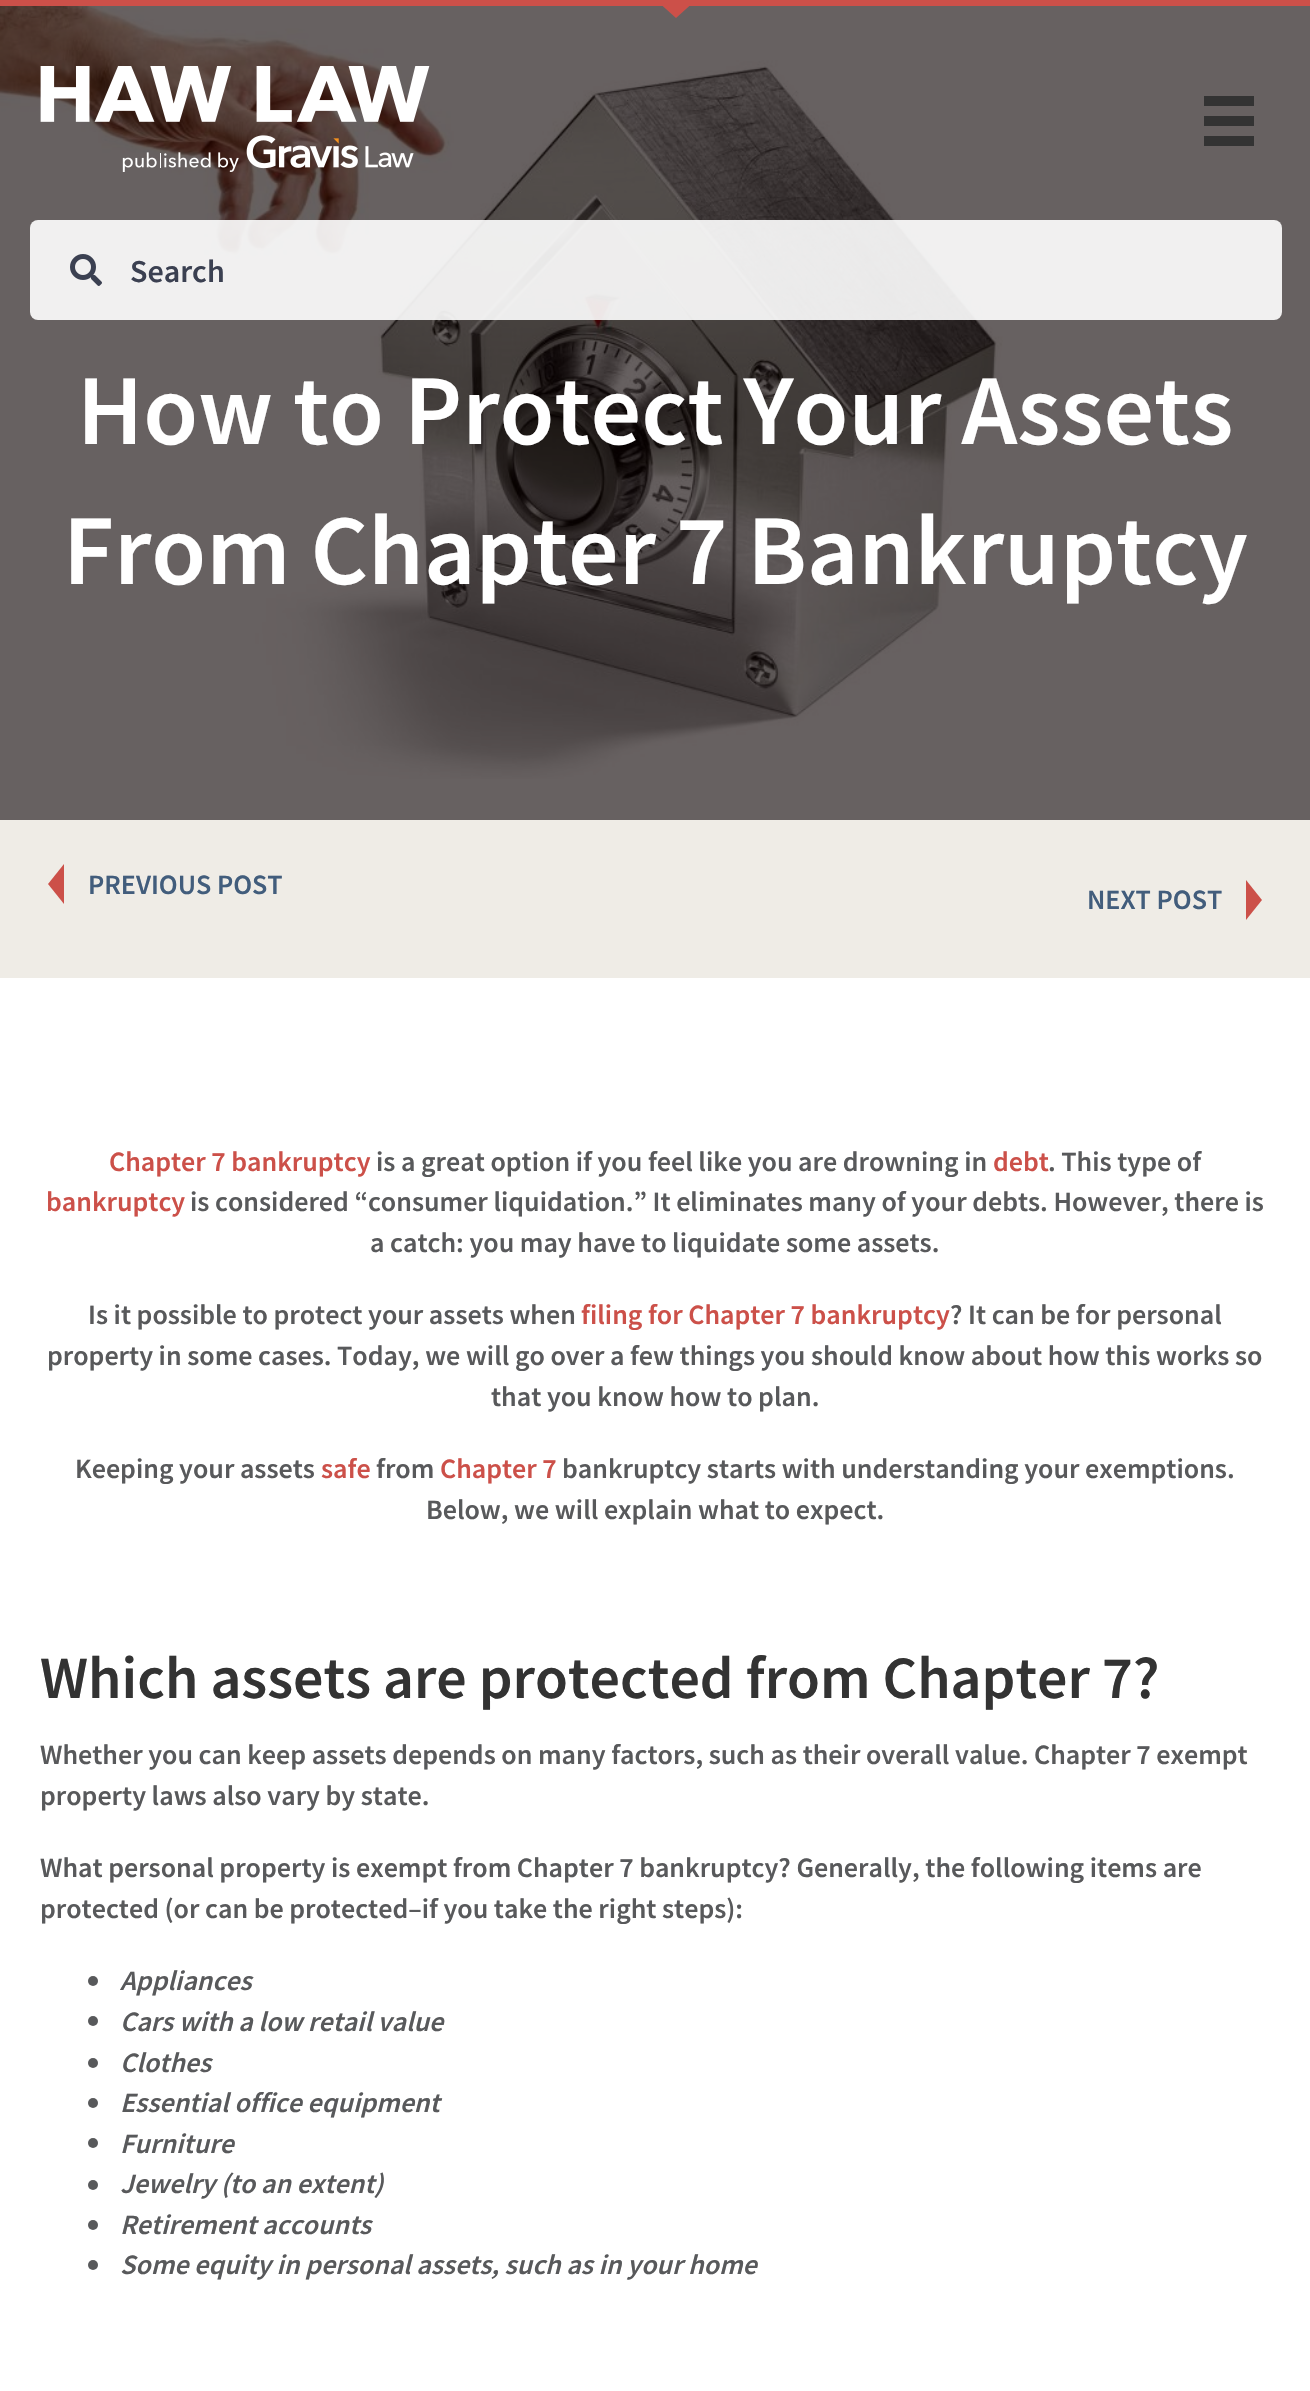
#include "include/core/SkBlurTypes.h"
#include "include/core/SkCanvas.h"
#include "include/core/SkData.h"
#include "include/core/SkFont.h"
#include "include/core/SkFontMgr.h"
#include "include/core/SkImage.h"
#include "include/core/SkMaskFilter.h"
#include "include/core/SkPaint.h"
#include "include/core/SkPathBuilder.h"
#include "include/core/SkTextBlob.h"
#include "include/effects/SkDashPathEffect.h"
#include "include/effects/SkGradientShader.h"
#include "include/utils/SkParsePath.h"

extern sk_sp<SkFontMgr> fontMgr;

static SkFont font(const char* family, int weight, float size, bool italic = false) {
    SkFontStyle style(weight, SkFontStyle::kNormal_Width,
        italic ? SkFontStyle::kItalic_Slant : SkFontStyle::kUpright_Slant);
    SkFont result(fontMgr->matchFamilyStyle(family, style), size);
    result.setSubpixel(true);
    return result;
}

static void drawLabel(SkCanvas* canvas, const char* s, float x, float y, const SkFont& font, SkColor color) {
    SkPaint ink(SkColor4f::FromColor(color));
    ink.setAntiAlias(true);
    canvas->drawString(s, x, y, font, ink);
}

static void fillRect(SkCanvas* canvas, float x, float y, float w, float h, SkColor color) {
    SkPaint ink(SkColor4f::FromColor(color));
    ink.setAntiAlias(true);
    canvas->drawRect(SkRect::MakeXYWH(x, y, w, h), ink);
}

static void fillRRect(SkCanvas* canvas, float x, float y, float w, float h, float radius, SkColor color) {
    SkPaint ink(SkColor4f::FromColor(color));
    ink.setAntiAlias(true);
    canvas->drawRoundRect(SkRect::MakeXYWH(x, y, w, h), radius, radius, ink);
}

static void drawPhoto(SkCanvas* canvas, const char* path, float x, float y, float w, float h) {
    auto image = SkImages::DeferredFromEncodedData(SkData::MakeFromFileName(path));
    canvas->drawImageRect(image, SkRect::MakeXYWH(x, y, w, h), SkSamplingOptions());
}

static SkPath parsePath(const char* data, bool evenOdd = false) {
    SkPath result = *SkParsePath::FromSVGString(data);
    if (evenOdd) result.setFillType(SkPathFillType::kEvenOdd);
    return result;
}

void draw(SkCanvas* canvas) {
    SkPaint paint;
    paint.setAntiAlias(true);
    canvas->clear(0xFFFFFFFF);
    fillRect(canvas, 0, 0, 1310, 6, 0xFFCC5049);
    fillRect(canvas, 0, 6, 1310, 814, 0xFF676161);
    drawPhoto(canvas, "assets/img3.png", 0, 6, 1003, 773);
    paint.setColor(0xFFCC5049);
    canvas->drawPath(parsePath("M656 0H696L676 18Z"), paint);
    drawPhoto(canvas, "assets/img1.png", 40, 66, 390, 106);
    fillRect(canvas, 1204, 96, 50, 10, 0xFF333333);
    fillRect(canvas, 1204, 116, 50, 10, 0xFF333333);
    fillRect(canvas, 1204, 136, 50, 10, 0xFF333333);
    fillRRect(canvas, 30, 220, 1252, 100, 8, 0xE6FFFFFF);
    drawPhoto(canvas, "assets/img2.png", 70, 254, 32, 32);
    SkFont font1 = font("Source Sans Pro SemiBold", 600, 32);
    drawLabel(canvas, "Search", 130, 282, font1, 0xFF3B4051);
    SkFont font2 = font("Source Sans Pro SemiBold", 600, 100);
    drawLabel(canvas, "How to Protect Your Assets", 77, 444, font2, 0xFFFFFFFF);
    drawLabel(canvas, "From Chapter 7 Bankruptcy", 63, 584, font2, 0xFFFFFFFF);
    fillRect(canvas, 0, 820, 1310, 158, 0xFFEFECE6);
    canvas->drawPath(parsePath("M64 864V904L48 884Z"), paint);
    SkFont font3 = font("Source Sans Pro SemiBold", 600, 28);
    drawLabel(canvas, "PREVIOUS POST", 88, 894, font3, 0xFF425D7C);
    drawLabel(canvas, "NEXT POST", 1087, 909, font3, 0xFF425D7C);
    canvas->drawPath(parsePath("M1246 920V880L1262 900Z"), paint);
    drawLabel(canvas, "Chapter 7 bankruptcy", 109, 1171, font3, 0xFFCC5049);
    drawLabel(canvas, "is a great option if you feel like you are drowning in", 376, 1171, font3, 0xFF58595B);
    drawLabel(canvas, "debt", 993, 1171, font3, 0xFFCC5049);
    drawLabel(canvas, ". This type of", 1048, 1171, font3, 0xFF58595B);
    drawLabel(canvas, "bankruptcy", 46, 1211, font3, 0xFFCC5049);
    drawLabel(canvas, "is considered “consumer liquidation.” It eliminates many of your debts. However, there is", 190, 1211, font3, 0xFF58595B);
    drawLabel(canvas, "a catch: you may have to liquidate some assets.", 370, 1252, font3, 0xFF58595B);
    drawLabel(canvas, "Is it possible to protect your assets when", 88, 1324, font3, 0xFF58595B);
    drawLabel(canvas, "filing for Chapter 7 bankruptcy", 581, 1324, font3, 0xFFCC5049);
    drawLabel(canvas, "? It can be for personal", 950, 1324, font3, 0xFF58595B);
    drawLabel(canvas, "property in some cases. Today, we will go over a few things you should know about how this works so", 47, 1365, font3, 0xFF58595B);
    drawLabel(canvas, "that you know how to plan.", 491, 1406, font3, 0xFF58595B);
    drawLabel(canvas, "Keeping your assets", 75, 1478, font3, 0xFF58595B);
    drawLabel(canvas, "safe", 321, 1478, font3, 0xFFCC5049);
    drawLabel(canvas, "from", 376, 1478, font3, 0xFF58595B);
    drawLabel(canvas, "Chapter 7", 440, 1478, font3, 0xFFCC5049);
    drawLabel(canvas, "bankruptcy starts with understanding your exemptions.", 562, 1478, font3, 0xFF58595B);
    drawLabel(canvas, "Below, we will explain what to expect.", 426, 1519, font3, 0xFF58595B);
    SkFont font4 = font("Source Sans Pro SemiBold", 600, 60);
    drawLabel(canvas, "Which assets are protected from Chapter 7?", 40, 1698, font4, 0xFF333333);
    drawLabel(canvas, "Whether you can keep assets depends on many factors, such as their overall value. Chapter 7 exempt", 40, 1764, font3, 0xFF58595B);
    drawLabel(canvas, "property laws also vary by state.", 40, 1805, font3, 0xFF58595B);
    drawLabel(canvas, "What personal property is exempt from Chapter 7 bankruptcy? Generally, the following items are", 40, 1877, font3, 0xFF58595B);
    drawLabel(canvas, "protected (or can be protected–if you take the right steps):", 40, 1918, font3, 0xFF58595B);
    paint.setColor(0xFF58595B);
    canvas->drawCircle(93, 1981, 5, paint);
    SkFont font5 = font("Source Sans Pro SemiBold", 600, 28, true);
    drawLabel(canvas, "Appliances", 120, 1990, font5, 0xFF58595B);
    canvas->drawCircle(93, 2021, 5, paint);
    drawLabel(canvas, "Cars with a low retail value", 120, 2031, font5, 0xFF58595B);
    canvas->drawCircle(93, 2063, 5, paint);
    drawLabel(canvas, "Clothes", 120, 2072, font5, 0xFF58595B);
    canvas->drawCircle(93, 2103, 5, paint);
    drawLabel(canvas, "Essential office equipment", 120, 2112, font5, 0xFF58595B);
    canvas->drawCircle(93, 2143, 5, paint);
    drawLabel(canvas, "Furniture", 120, 2153, font5, 0xFF58595B);
    canvas->drawCircle(93, 2185, 5, paint);
    drawLabel(canvas, "Jewelry (to an extent)", 120, 2193, font5, 0xFF58595B);
    canvas->drawCircle(93, 2225, 5, paint);
    drawLabel(canvas, "Retirement accounts", 120, 2234, font5, 0xFF58595B);
    canvas->drawCircle(93, 2265, 5, paint);
    drawLabel(canvas, "Some equity in personal assets, such as in your home", 120, 2274, font5, 0xFF58595B);
}
